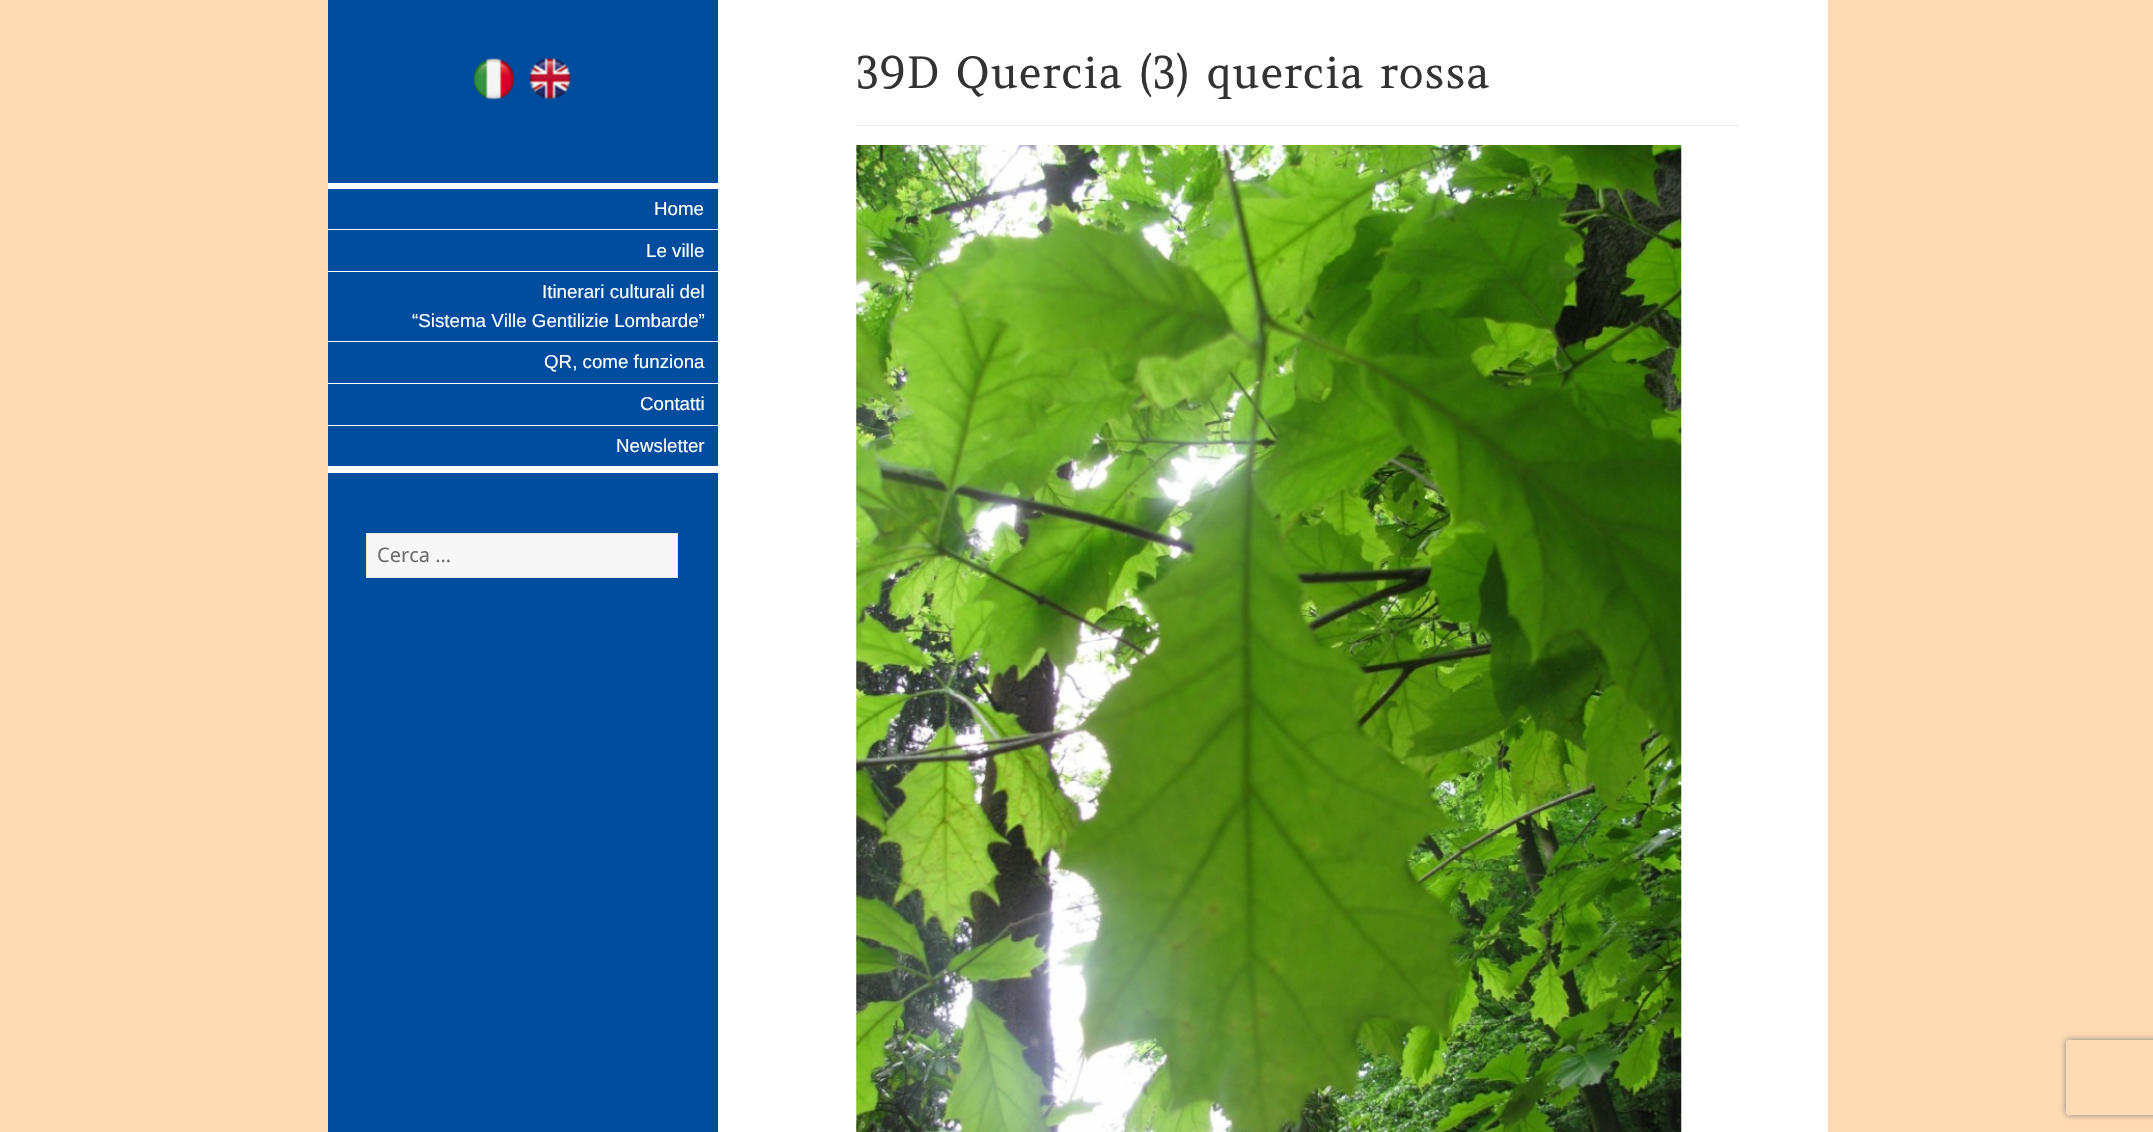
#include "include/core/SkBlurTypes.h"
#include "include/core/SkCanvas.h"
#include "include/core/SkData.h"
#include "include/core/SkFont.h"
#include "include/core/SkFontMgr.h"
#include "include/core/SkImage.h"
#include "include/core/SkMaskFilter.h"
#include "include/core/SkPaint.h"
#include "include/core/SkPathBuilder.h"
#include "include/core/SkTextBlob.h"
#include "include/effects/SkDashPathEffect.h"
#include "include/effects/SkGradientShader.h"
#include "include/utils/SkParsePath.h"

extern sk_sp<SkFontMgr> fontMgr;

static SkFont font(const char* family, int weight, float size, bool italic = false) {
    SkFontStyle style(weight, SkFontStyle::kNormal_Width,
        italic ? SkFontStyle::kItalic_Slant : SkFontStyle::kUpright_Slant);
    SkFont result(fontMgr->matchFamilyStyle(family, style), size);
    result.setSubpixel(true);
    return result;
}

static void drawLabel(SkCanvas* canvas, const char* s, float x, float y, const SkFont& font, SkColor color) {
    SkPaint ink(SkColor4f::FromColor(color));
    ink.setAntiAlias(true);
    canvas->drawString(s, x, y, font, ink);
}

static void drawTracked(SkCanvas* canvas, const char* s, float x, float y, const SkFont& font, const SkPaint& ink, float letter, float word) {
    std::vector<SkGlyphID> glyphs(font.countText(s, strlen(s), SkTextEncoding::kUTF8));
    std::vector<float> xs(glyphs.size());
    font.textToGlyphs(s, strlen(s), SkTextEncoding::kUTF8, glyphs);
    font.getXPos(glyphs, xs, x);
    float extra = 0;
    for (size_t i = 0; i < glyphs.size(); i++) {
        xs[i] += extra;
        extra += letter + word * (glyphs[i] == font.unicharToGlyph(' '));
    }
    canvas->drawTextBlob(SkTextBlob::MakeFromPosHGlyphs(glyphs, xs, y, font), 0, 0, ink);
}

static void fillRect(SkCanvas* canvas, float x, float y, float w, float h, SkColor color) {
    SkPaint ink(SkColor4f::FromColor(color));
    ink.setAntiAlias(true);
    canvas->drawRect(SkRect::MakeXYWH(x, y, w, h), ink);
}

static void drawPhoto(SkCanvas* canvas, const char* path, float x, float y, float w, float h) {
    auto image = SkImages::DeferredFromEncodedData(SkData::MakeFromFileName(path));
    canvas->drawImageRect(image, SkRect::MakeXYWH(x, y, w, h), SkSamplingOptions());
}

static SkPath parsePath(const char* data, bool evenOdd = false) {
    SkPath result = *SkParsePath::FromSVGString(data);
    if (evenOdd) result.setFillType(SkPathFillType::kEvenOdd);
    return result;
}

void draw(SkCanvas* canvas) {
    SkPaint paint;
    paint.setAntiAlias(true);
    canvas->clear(0xFFFEDBB4);
    fillRect(canvas, 718, 0, 1110, 1132, 0xFFFFFFFF);
    SkFont font1 = font("Amethysta", 400, 43.75f);
    paint.setColor(0xFF333333);
    drawTracked(canvas, "39D Quercia (3) quercia rossa", 856, 88, font1, paint, 0.6f, 0);
    fillRect(canvas, 856, 125, 883, 1, 0xFFE9EBEC);
    drawPhoto(canvas, "assets/img1.png", 856, 145, 826, 987);
    fillRect(canvas, 328, 0, 390, 1132, 0xFF004D9F);
    drawPhoto(canvas, "assets/img2.png", 473, 58, 42, 42);
    drawPhoto(canvas, "assets/img3.png", 529, 58, 42, 42);
    fillRect(canvas, 328, 466, 390, 7, 0xFFFFFFFF);
    fillRect(canvas, 328, 183, 390, 6, 0xFFFFFFFF);
    SkFont font2 = font("Liberation Sans", 400, 18.75f);
    drawLabel(canvas, "Home", 654, 215, font2, 0xFFFFFFFF);
    fillRect(canvas, 328, 229, 390, 1, 0xFFFFFFFF);
    drawLabel(canvas, "Le ville", 646, 257, font2, 0xFFFFFFFF);
    fillRect(canvas, 328, 271, 390, 1, 0xFFFFFFFF);
    drawLabel(canvas, "Itinerari culturali del", 542, 298, font2, 0xFFFFFFFF);
    drawLabel(canvas, "“Sistema Ville Gentilizie Lombarde”", 412, 327, font2, 0xFFFFFFFF);
    fillRect(canvas, 328, 341, 390, 1, 0xFFFFFFFF);
    drawLabel(canvas, "QR, come funziona", 544, 368, font2, 0xFFFFFFFF);
    fillRect(canvas, 328, 383, 390, 1, 0xFFFFFFFF);
    drawLabel(canvas, "Contatti", 640, 410, font2, 0xFFFFFFFF);
    fillRect(canvas, 328, 425, 390, 1, 0xFFFFFFFF);
    drawLabel(canvas, "Newsletter", 616, 452, font2, 0xFFFFFFFF);
    paint.setColor(0xFFF7F7F7);
    canvas->drawRect(SkRect::MakeXYWH(366.5f, 533.5f, 311, 44), paint);
    paint.setStroke(true);
    paint.setStrokeWidth(1);
    paint.setColor(0xFFE3E3E3);
    canvas->drawRect(SkRect::MakeXYWH(366.5f, 533.5f, 311, 44), paint);
    SkFont font3 = font("Noto Sans", 400, 20);
    drawLabel(canvas, "Cerca …", 377, 562, font3, 0xFF6E6E6E);
    canvas->save();
    canvas->clipPath(parsePath("M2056 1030H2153V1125H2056ZM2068.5 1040H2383.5C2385 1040 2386 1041 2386 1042.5V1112.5C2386 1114 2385 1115 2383.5 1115H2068.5C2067 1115 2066 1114 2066 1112.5V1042.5C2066 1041 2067 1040 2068.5 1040Z", true), true);
    paint.setStroke(false);
    paint.setColor(0xFF808080);
    paint.setMaskFilter(SkMaskFilter::MakeBlur(kNormal_SkBlurStyle, 3));
    canvas->drawRoundRect(SkRect::MakeXYWH(2066, 1040, 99, 75), 2.5f, 2.5f, paint);
    paint.setMaskFilter(nullptr);
    canvas->restore();
}
